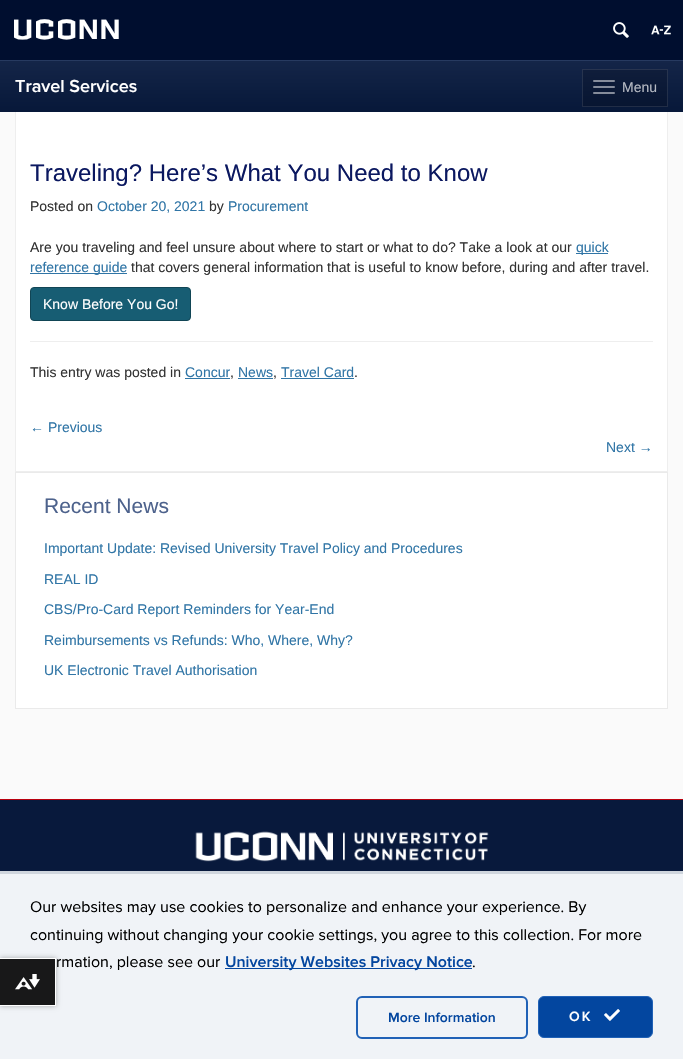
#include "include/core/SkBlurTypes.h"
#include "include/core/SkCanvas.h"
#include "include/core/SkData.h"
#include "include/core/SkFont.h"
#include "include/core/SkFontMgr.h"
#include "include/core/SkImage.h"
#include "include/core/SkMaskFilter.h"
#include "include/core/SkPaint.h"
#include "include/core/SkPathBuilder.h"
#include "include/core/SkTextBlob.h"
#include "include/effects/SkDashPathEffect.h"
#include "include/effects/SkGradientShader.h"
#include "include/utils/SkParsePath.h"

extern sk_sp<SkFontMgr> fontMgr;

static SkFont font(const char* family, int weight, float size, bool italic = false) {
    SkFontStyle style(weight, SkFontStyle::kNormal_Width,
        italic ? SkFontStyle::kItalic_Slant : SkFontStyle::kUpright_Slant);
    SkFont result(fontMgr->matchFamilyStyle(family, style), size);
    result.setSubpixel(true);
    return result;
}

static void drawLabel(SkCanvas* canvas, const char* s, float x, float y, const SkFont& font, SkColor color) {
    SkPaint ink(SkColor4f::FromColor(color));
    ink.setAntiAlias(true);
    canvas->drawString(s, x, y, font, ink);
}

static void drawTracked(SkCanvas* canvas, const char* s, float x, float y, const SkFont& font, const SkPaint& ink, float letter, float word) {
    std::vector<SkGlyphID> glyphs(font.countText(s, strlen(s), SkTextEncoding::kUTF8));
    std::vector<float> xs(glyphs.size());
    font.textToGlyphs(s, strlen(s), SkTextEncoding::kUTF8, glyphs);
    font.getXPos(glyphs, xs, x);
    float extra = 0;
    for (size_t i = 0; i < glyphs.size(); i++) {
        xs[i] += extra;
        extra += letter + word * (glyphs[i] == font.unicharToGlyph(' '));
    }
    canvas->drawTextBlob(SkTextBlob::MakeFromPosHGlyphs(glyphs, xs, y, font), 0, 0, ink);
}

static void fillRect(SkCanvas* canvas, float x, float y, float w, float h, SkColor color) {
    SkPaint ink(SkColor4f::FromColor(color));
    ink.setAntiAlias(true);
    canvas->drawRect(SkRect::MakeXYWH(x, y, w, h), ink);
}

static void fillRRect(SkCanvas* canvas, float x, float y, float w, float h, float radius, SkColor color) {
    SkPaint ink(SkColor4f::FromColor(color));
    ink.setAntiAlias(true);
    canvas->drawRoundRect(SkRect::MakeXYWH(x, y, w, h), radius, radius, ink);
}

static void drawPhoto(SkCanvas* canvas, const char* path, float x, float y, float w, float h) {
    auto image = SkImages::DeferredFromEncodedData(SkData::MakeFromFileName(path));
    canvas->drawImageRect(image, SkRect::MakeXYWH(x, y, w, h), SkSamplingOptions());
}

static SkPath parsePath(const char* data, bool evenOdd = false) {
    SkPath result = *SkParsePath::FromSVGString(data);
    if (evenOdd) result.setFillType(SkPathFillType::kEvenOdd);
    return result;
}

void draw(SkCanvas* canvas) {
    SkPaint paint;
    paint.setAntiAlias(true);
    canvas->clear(0xFFFAFAFA);
    fillRect(canvas, 0, 0, 683, 60, 0xFF000E2F);
    fillRect(canvas, 0, 60, 683, 1, 0xFF273A60);
    SkFont font1 = font("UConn", 400, 32);
    paint.setColor(0xFFFFFFFF);
    drawTracked(canvas, "UCONN", 14, 39, font1, paint, 3, 0);
    drawPhoto(canvas, "assets/img1.png", 613, 22, 16, 16);
    drawPhoto(canvas, "assets/img2.png", 651, 25, 20, 10);
    {
        const SkColor colors[] = {0xFF142548, 0xFF071839};
        const float stops[] = {0, 1};
        const SkPoint ends[] = {{342, 61}, {342, 112}};
        paint.setShader(SkGradientShader::MakeLinear(ends, colors, stops, 2, SkTileMode::kClamp));
        paint.setAlpha(255);
    }
    canvas->drawRect(SkRect::MakeXYWH(0, 61, 683, 51), paint);
    {
        const SkColor colors[] = {0xFF111F3D, 0xFF061430};
        const float stops[] = {0, 1};
        const SkPoint ends[] = {{342, 61}, {342, 112}};
        paint.setShader(SkGradientShader::MakeLinear(ends, colors, stops, 2, SkTileMode::kClamp));
        paint.setAlpha(255);
    }
    canvas->drawRect(SkRect::MakeXYWH(582, 69, 86, 38), paint);
    SkFont font2 = font("Proxima Nova", 600, 18);
    drawLabel(canvas, "Travel Services", 15, 92, font2, 0xFFFFFFFF);
    paint.setStroke(true);
    paint.setStrokeWidth(1);
    paint.setShader(nullptr);
    paint.setColor(0x1AFFFFFF);
    canvas->drawRect(SkRect::MakeXYWH(582.5f, 69.5f, 85, 37), paint);
    fillRRect(canvas, 593, 80, 22, 2, 1, 0xFF868D9C);
    fillRRect(canvas, 593, 86, 22, 2, 1, 0xFF858C9B);
    fillRRect(canvas, 593, 92, 22, 2, 1, 0xFF858C9A);
    SkFont font3 = font("Liberation Sans", 400, 14);
    drawLabel(canvas, "Menu", 622, 92, font3, 0xFFB6BAC3);
    fillRect(canvas, 16, 112, 651, 359, 0xFFFFFFFF);
    fillRect(canvas, 667, 112, 1, 360, 0xFFEEEEEE);
    fillRect(canvas, 15, 471, 653, 1, 0xFFEEEEEE);
    fillRect(canvas, 15, 112, 1, 360, 0xFFEEEEEE);
    SkFont font4 = font("Liberation Sans", 400, 24);
    drawLabel(canvas, "Traveling? Here’s What You Need to Know", 30, 181, font4, 0xFF0B1860);
    drawLabel(canvas, "Posted on", 30, 211, font3, 0xFF333333);
    drawLabel(canvas, "October 20, 2021", 97, 211, font3, 0xFF3075A6);
    drawLabel(canvas, "by", 209, 211, font3, 0xFF333333);
    drawLabel(canvas, "Procurement", 228, 211, font3, 0xFF3075A6);
    drawLabel(canvas, "Are you traveling and feel unsure about where to start or what to do? Take a look at our", 30, 252, font3, 0xFF333333);
    fillRect(canvas, 576, 253, 32, 1, 0xFF3075A6);
    drawLabel(canvas, "quick", 576, 252, font3, 0xFF3075A6);
    fillRect(canvas, 30, 273, 97, 1, 0xFF3075A6);
    drawLabel(canvas, "reference guide", 30, 272, font3, 0xFF3075A6);
    drawLabel(canvas, "that covers general information that is useful to know before, during and after travel.", 131, 272, font3, 0xFF333333);
    paint.setStroke(false);
    paint.setColor(0xFF175D73);
    canvas->drawRoundRect(SkRect::MakeXYWH(30.5f, 287.5f, 160, 33), 3.5f, 3.5f, paint);
    paint.setStroke(true);
    paint.setColor(0xFF114555);
    canvas->drawRoundRect(SkRect::MakeXYWH(30.5f, 287.5f, 160, 33), 3.5f, 3.5f, paint);
    drawLabel(canvas, "Know Before You Go!", 43, 309, font3, 0xFFFFFFFF);
    fillRect(canvas, 30, 341, 623, 1, 0xFFEEEEEE);
    drawLabel(canvas, "This entry was posted in", 30, 377, font3, 0xFF333333);
    drawLabel(canvas, "Concur", 185, 377, font3, 0xFF3075A6);
    fillRect(canvas, 185, 378, 45, 1, 0xFF3075A6);
    drawLabel(canvas, ",", 230, 377, font3, 0xFF333333);
    drawLabel(canvas, "News", 238, 377, font3, 0xFF3075A6);
    fillRect(canvas, 238, 378, 35, 1, 0xFF3075A6);
    drawLabel(canvas, ",", 273, 377, font3, 0xFF333333);
    drawLabel(canvas, "Travel Card", 281, 377, font3, 0xFF3075A6);
    fillRect(canvas, 281, 378, 73, 1, 0xFF3075A6);
    drawLabel(canvas, ".", 354, 377, font3, 0xFF333333);
    drawLabel(canvas, "← Previous", 30, 432, font3, 0xFF3075A6);
    drawLabel(canvas, "Next →", 606, 452, font3, 0xFF3075A6);
    paint.setStroke(false);
    paint.setColor(0xFFFFFFFF);
    canvas->drawRect(SkRect::MakeXYWH(15.5f, 472.5f, 652, 236), paint);
    paint.setStroke(true);
    paint.setColor(0xFFEAEAEA);
    canvas->drawRect(SkRect::MakeXYWH(15.5f, 472.5f, 652, 236), paint);
    SkFont font5 = font("Liberation Sans", 400, 21);
    drawLabel(canvas, "Recent News", 44, 513, font5, 0xFF4D628C);
    drawLabel(canvas, "Important Update: Revised University Travel Policy and Procedures", 44, 553, font3, 0xFF3075A6);
    drawLabel(canvas, "REAL ID", 44, 584, font3, 0xFF3075A6);
    drawLabel(canvas, "CBS/Pro-Card Report Reminders for Year-End", 44, 614, font3, 0xFF3075A6);
    drawLabel(canvas, "Reimbursements vs Refunds: Who, Where, Why?", 44, 645, font3, 0xFF3075A6);
    drawLabel(canvas, "UK Electronic Travel Authorisation", 44, 675, font3, 0xFF3075A6);
    fillRect(canvas, 0, 800, 683, 71, 0xFF08193C);
    fillRect(canvas, 0, 799, 683, 1, 0xFFB8000F);
    drawPhoto(canvas, "assets/img3.png", 195, 831, 294, 31);
    fillRect(canvas, 0, 874, 683, 185, 0xFFF0F3F7);
    fillRect(canvas, 0, 871, 683, 3, 0xFFCFD5DD);
    SkFont font6 = font("Proxima Nova", 400, 16);
    drawLabel(canvas, "Our websites may use cookies to personalize and enhance your experience. By", 30, 912, font6, 0xFF000000);
    drawLabel(canvas, "continuing without changing your cookie settings, you agree to this collection. For more", 30, 940, font6, 0xFF000000);
    drawLabel(canvas, "rmation, please see our", 56, 967, font6, 0xFF000000);
    fillRect(canvas, 225, 968, 247, 1, 0xFF03469F);
    SkFont font7 = font("Proxima Nova", 600, 16);
    drawLabel(canvas, "University Websites Privacy Notice", 225, 967, font7, 0xFF03469F);
    drawLabel(canvas, ".", 472, 967, font6, 0xFF000000);
    paint.setStrokeWidth(2);
    paint.setColor(0xFF2061B6);
    canvas->drawRoundRect(SkRect::MakeXYWH(357, 997, 170, 41), 5, 5, paint);
    SkFont font8 = font("Proxima Nova", 600, 14);
    drawLabel(canvas, "More Information", 388, 1022, font8, 0xFF03469F);
    paint.setStroke(false);
    paint.setColor(0xFF03469F);
    canvas->drawRoundRect(SkRect::MakeXYWH(538.5f, 996.5f, 114, 41), 5.5f, 5.5f, paint);
    paint.setStroke(true);
    paint.setStrokeWidth(1);
    paint.setColor(0xFF2061B6);
    canvas->drawRoundRect(SkRect::MakeXYWH(538.5f, 996.5f, 114, 41), 5.5f, 5.5f, paint);
    paint.setStroke(false);
    paint.setColor(0xFFFFFFFF);
    drawTracked(canvas, "OK", 569, 1021, font8, paint, 2, 0);
    drawPhoto(canvas, "assets/img4.png", 604, 1009, 16, 12);
    canvas->save();
    canvas->clipPath(parsePath("M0 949H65V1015H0ZM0 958H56V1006H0Z", true), true);
    paint.setColor(0x4D000000);
    paint.setMaskFilter(SkMaskFilter::MakeBlur(kNormal_SkBlurStyle, 2.5f));
    canvas->drawRect(SkRect::MakeXYWH(0, 958, 56, 48), paint);
    paint.setMaskFilter(nullptr);
    canvas->restore();
    fillRect(canvas, 0, 959, 55, 46, 0xE6000000);
    fillRect(canvas, 0, 958, 56, 1, 0xFFFFFFFF);
    fillRect(canvas, 55, 958, 1, 48, 0xFFFFFFFF);
    fillRect(canvas, 0, 1005, 56, 1, 0xFFFFFFFF);
    drawPhoto(canvas, "assets/img5.png", 15, 974, 25, 16);
}
